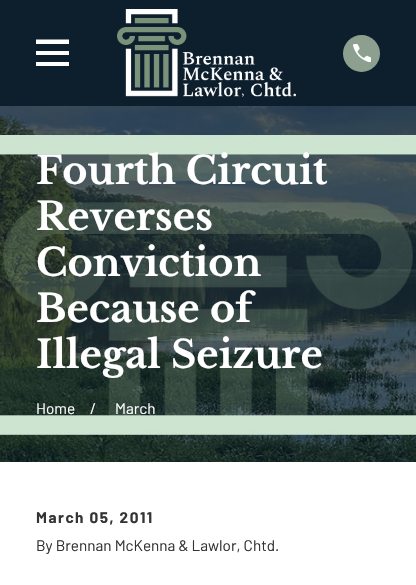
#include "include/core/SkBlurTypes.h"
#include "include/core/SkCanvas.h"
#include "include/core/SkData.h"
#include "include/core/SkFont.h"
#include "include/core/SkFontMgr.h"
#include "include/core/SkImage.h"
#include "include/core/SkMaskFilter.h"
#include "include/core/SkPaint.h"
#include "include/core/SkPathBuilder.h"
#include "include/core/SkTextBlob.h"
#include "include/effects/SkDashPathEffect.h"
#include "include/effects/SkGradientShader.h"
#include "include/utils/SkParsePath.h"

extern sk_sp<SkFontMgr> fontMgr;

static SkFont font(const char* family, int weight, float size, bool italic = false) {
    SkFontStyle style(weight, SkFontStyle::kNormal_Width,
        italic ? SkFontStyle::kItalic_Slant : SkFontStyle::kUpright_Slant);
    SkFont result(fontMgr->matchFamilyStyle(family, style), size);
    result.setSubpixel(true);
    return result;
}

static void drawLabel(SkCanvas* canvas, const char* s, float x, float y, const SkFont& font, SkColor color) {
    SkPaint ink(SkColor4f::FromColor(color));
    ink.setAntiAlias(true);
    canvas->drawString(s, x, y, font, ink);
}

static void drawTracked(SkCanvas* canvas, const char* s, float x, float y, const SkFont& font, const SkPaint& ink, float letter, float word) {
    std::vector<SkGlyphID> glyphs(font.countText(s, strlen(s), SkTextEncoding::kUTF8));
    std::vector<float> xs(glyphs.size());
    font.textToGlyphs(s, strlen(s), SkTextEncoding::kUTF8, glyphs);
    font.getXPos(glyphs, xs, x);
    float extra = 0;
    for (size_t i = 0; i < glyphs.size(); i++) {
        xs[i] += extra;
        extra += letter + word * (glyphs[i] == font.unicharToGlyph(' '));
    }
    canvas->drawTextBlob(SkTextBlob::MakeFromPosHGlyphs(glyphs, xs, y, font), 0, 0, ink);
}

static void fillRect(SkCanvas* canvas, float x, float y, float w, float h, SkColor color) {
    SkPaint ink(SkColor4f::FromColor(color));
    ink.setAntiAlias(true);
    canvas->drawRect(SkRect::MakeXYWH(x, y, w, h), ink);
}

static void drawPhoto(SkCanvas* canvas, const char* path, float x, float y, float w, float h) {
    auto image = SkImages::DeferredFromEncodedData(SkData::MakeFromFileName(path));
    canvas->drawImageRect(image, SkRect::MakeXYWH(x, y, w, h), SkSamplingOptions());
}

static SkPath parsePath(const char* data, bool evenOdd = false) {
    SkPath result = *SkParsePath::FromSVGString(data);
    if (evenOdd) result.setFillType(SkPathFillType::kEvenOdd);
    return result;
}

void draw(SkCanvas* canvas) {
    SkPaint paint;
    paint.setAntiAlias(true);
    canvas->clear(0xFFFFFFFF);
    fillRect(canvas, 0, 0, 416, 106, 0xFF0D1E2D);
    canvas->save();
    canvas->clipRect(SkRect::MakeXYWH(36, 36, 33, 34));
    paint.setColor(0xFFFFFFFF);
    canvas->drawPath(parsePath("M36 39.5V44H69.5V39.5ZM36 51V55H69.5V51ZM36 62V66H69.5V62Z"), paint);
    canvas->restore();
    drawPhoto(canvas, "assets/img1.png", 117, 9, 179, 88);
    paint.setColor(0xFF8DA08F);
    canvas->drawCircle(361.5f, 53.5f, 18.5f, paint);
    drawPhoto(canvas, "assets/img2.png", 353, 44, 18, 18);
    drawPhoto(canvas, "assets/img3.png", 0, 106, 416, 356);
    SkFont font1 = font("Libre Baskerville", 700, 38.25f);
    drawLabel(canvas, "Fourth Circuit", 36, 184, font1, 0xFFFFFFFF);
    drawLabel(canvas, "Reverses", 36, 230, font1, 0xFFFFFFFF);
    drawLabel(canvas, "Conviction", 36, 276, font1, 0xFFFFFFFF);
    drawLabel(canvas, "Because of", 36, 322, font1, 0xFFFFFFFF);
    drawLabel(canvas, "Illegal Seizure", 36, 368, font1, 0xFFFFFFFF);
    SkFont font2 = font("Barlow", 400, 15.3f);
    drawLabel(canvas, "Home", 36, 414, font2, 0xFFFFFFFF);
    drawLabel(canvas, "/", 90, 414, font2, 0xFFFFFFFF);
    drawLabel(canvas, "March", 115, 414, font2, 0xFFFFFFFF);
    SkFont font3 = font("Barlow", 700, 15.3f);
    paint.setColor(0xFF343434);
    drawTracked(canvas, "March 05, 2011", 36, 523, font3, paint, 1.5f, 0);
    drawLabel(canvas, "By Brennan McKenna & Lawlor, Chtd.", 36, 551, font2, 0xFF343434);
}
